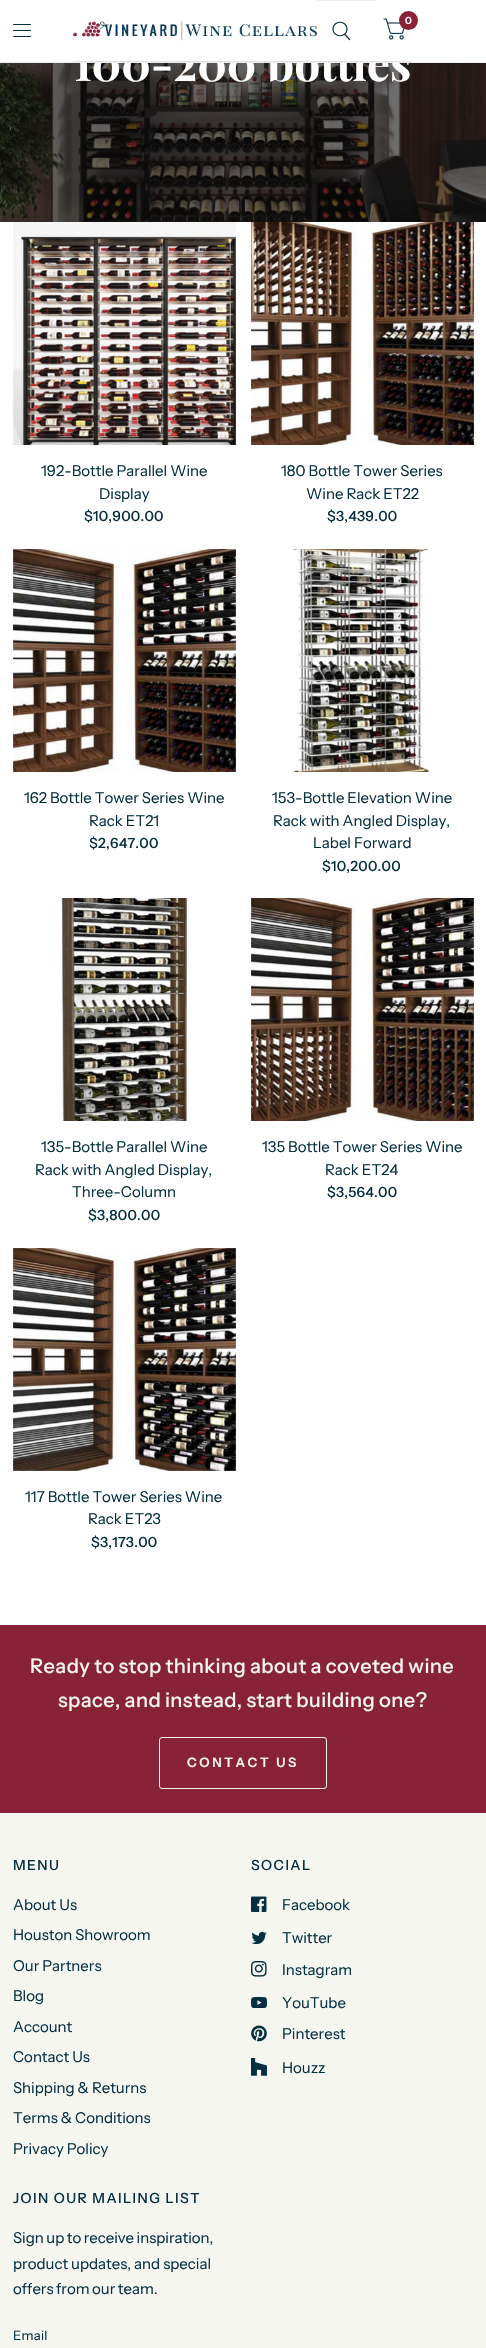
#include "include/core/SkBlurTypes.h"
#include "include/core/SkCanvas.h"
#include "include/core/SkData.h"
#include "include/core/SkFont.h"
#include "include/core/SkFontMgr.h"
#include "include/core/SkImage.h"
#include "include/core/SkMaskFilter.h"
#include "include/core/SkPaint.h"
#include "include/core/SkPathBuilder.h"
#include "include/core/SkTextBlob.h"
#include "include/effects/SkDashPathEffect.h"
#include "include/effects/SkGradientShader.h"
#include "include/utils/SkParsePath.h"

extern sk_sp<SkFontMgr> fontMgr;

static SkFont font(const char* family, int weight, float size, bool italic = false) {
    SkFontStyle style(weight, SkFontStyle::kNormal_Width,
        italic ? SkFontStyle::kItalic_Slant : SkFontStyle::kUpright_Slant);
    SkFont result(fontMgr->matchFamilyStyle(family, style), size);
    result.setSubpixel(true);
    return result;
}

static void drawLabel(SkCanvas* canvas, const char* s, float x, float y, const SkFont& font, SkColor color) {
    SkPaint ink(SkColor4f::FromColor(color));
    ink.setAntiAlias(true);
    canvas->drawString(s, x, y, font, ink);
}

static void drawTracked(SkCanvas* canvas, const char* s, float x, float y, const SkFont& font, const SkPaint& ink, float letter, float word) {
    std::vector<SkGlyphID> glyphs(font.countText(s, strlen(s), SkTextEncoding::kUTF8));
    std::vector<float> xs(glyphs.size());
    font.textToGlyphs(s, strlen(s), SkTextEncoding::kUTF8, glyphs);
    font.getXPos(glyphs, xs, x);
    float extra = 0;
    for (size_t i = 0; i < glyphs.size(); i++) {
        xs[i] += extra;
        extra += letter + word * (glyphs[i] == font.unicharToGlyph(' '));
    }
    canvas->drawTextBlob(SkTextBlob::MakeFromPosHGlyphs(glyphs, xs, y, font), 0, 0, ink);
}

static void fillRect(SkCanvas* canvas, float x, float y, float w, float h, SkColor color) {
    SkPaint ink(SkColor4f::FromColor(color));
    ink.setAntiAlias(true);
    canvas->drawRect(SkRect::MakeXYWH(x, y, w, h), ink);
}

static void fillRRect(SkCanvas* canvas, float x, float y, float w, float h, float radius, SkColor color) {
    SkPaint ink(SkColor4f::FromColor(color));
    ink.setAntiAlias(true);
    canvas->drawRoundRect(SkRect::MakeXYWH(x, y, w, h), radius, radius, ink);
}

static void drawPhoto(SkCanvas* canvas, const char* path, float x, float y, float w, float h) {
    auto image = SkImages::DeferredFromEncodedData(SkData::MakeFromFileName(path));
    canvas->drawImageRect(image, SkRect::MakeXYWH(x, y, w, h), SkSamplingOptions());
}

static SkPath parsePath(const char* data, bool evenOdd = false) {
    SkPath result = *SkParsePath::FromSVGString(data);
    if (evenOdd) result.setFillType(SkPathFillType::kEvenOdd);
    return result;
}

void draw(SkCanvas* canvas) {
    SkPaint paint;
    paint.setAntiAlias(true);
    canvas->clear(0xFFFFFFFF);
    drawPhoto(canvas, "assets/img3.png", 0, 63, 486, 159);
    SkFont font1 = font("Playfair Display", 700, 46);
    drawLabel(canvas, "100-200 bottles", 74, 81, font1, 0xFFFFFFFF);
    fillRect(canvas, 0, 62, 486, 1, 0xFFEEEEEE);
    drawPhoto(canvas, "assets/img1.png", 73, 21, 244, 20);
    fillRect(canvas, 317, 0, 59, 1, 0xFFEEEEEE);
    paint.setStroke(true);
    paint.setStrokeWidth(1.2f);
    paint.setStrokeCap(SkPaint::kRound_Cap);
    paint.setStrokeJoin(SkPaint::kRound_Join);
    paint.setColor(0xFF032F40);
    canvas->drawPath(parsePath("M345 34.5L349.5 39.5M347 29C347 38 333 38 333 29C333 20 347 20 347 29Z"), paint);
    drawPhoto(canvas, "assets/img2.png", 383, 18, 22, 22);
    paint.setStroke(false);
    paint.setColor(0xFF872237);
    canvas->drawCircle(408.5f, 20.5f, 9.5f, paint);
    SkFont font2 = font("Instrument Sans", 600, 10);
    drawLabel(canvas, "0", 405, 24, font2, 0xFFFFFFFF);
    fillRect(canvas, 73, 61, 340, 1, 0xFFE1E1E1);
    fillRRect(canvas, 13, 24, 18, 1, 0.5f, 0xFF032F40);
    fillRRect(canvas, 13, 30, 18, 1, 0.5f, 0xFF032F40);
    fillRRect(canvas, 13, 36, 18, 1, 0.5f, 0xFF032F40);
    drawPhoto(canvas, "assets/img4.png", 13, 222, 223, 223);
    SkFont font3 = font("Instrument Sans", 400, 15);
    drawLabel(canvas, "192-Bottle Parallel Wine", 41, 476, font3, 0xFF032F40);
    drawLabel(canvas, "Display", 99, 499, font3, 0xFF032F40);
    SkFont font4 = font("Instrument Sans", 500, 14);
    paint.setColor(0xFF032F40);
    drawTracked(canvas, "$10,900.00", 84, 521, font4, paint, 0.25f, 0);
    drawPhoto(canvas, "assets/img5.png", 251, 222, 223, 223);
    drawLabel(canvas, "180 Bottle Tower Series", 281, 476, font3, 0xFF032F40);
    drawLabel(canvas, "Wine Rack ET22", 306, 499, font3, 0xFF032F40);
    drawTracked(canvas, "$3,439.00", 327, 521, font4, paint, 0.25f, 0);
    drawPhoto(canvas, "assets/img6.png", 13, 549, 223, 223);
    drawLabel(canvas, "162 Bottle Tower Series Wine", 24, 803, font3, 0xFF032F40);
    drawLabel(canvas, "Rack ET21", 89, 826, font3, 0xFF032F40);
    drawTracked(canvas, "$2,647.00", 89, 848, font4, paint, 0.25f, 0);
    drawPhoto(canvas, "assets/img7.png", 292, 549, 138, 223);
    drawLabel(canvas, "153-Bottle Elevation Wine", 272, 803, font3, 0xFF032F40);
    drawLabel(canvas, "Rack with Angled Display,", 273, 826, font3, 0xFF032F40);
    drawLabel(canvas, "Label Forward", 313, 848, font3, 0xFF032F40);
    drawTracked(canvas, "$10,200.00", 322, 871, font4, paint, 0.25f, 0);
    drawPhoto(canvas, "assets/img8.png", 60, 898, 129, 223);
    drawLabel(canvas, "135-Bottle Parallel Wine", 41, 1152, font3, 0xFF032F40);
    drawLabel(canvas, "Rack with Angled Display,", 35, 1175, font3, 0xFF032F40);
    drawLabel(canvas, "Three-Column", 72, 1197, font3, 0xFF032F40);
    drawTracked(canvas, "$3,800.00", 88, 1220, font4, paint, 0.25f, 0);
    drawPhoto(canvas, "assets/img9.png", 251, 898, 223, 223);
    drawLabel(canvas, "135 Bottle Tower Series Wine", 262, 1152, font3, 0xFF032F40);
    drawLabel(canvas, "Rack ET24", 325, 1175, font3, 0xFF032F40);
    drawTracked(canvas, "$3,564.00", 327, 1197, font4, paint, 0.25f, 0);
    drawPhoto(canvas, "assets/img10.png", 13, 1248, 223, 223);
    drawLabel(canvas, "117 Bottle Tower Series Wine", 25, 1502, font3, 0xFF032F40);
    drawLabel(canvas, "Rack ET23", 88, 1524, font3, 0xFF032F40);
    drawTracked(canvas, "$3,173.00", 91, 1547, font4, paint, 0.25f, 0);
    fillRect(canvas, 0, 1625, 486, 188, 0xFF872237);
    SkFont font5 = font("Instrument Sans", 500, 20);
    paint.setColor(0xFFF6F6F0);
    drawTracked(canvas, "Ready to stop thinking about a coveted wine", 30, 1673, font5, paint, 0.4f, -0.5f);
    drawTracked(canvas, "space, and instead, start building one?", 58, 1707, font5, paint, 0.4f, -0.5f);
    paint.setStroke(true);
    paint.setStrokeWidth(1);
    paint.setStrokeCap(SkPaint::kButt_Cap);
    paint.setStrokeJoin(SkPaint::kMiter_Join);
    canvas->drawRoundRect(SkRect::MakeXYWH(159.5f, 1737.5f, 167, 51), 2.5f, 2.5f, paint);
    SkFont font6 = font("Instrument Sans", 600, 13);
    paint.setStroke(false);
    drawTracked(canvas, "CONTACT US", 187, 1767, font6, paint, 2.6f, 0);
    fillRect(canvas, 0, 1813, 486, 535, 0xFFF6F6F0);
    paint.setColor(0xFF032F40);
    drawTracked(canvas, "MENU", 13, 1870, font4, paint, 1.4f, 0);
    drawLabel(canvas, "About Us", 13, 1910, font3, 0xFF032F40);
    drawLabel(canvas, "Houston Showroom", 13, 1940, font3, 0xFF032F40);
    drawLabel(canvas, "Our Partners", 13, 1971, font3, 0xFF032F40);
    drawLabel(canvas, "Blog", 13, 2001, font3, 0xFF032F40);
    drawLabel(canvas, "Account", 13, 2032, font3, 0xFF032F40);
    drawLabel(canvas, "Contact Us", 13, 2062, font3, 0xFF032F40);
    drawLabel(canvas, "Shipping & Returns", 13, 2093, font3, 0xFF032F40);
    drawLabel(canvas, "Terms & Conditions", 13, 2123, font3, 0xFF032F40);
    drawLabel(canvas, "Privacy Policy", 13, 2154, font3, 0xFF032F40);
    drawTracked(canvas, "SOCIAL", 251, 1870, font4, paint, 1.4f, 0);
    drawPhoto(canvas, "assets/img11.png", 251, 1896, 16, 16);
    drawLabel(canvas, "Facebook", 282, 1910, font3, 0xFF032F40);
    drawPhoto(canvas, "assets/img12.png", 251, 1931, 16, 13);
    drawLabel(canvas, "Twitter", 282, 1943, font3, 0xFF032F40);
    drawPhoto(canvas, "assets/img13.png", 251, 1961, 16, 16);
    drawLabel(canvas, "Instagram", 282, 1975, font3, 0xFF032F40);
    drawPhoto(canvas, "assets/img14.png", 251, 1997, 16, 11);
    drawLabel(canvas, "YouTube", 282, 2008, font3, 0xFF032F40);
    drawPhoto(canvas, "assets/img15.png", 251, 2025, 16, 17);
    drawLabel(canvas, "Pinterest", 282, 2039, font3, 0xFF032F40);
    drawPhoto(canvas, "assets/img16.png", 251, 2058, 16, 18);
    drawLabel(canvas, "Houzz", 282, 2073, font3, 0xFF032F40);
    drawTracked(canvas, "JOIN OUR MAILING LIST", 13, 2203, font4, paint, 1.4f, 0);
    drawTracked(canvas, "Sign up to receive inspiration,", 13, 2243, font3, paint, 0, -0.5f);
    drawLabel(canvas, "product updates, and special", 13, 2269, font3, 0xFF032F40);
    drawTracked(canvas, "offers from our team.", 13, 2294, font3, paint, 0, -0.5f);
    SkFont font7 = font("Instrument Sans", 400, 13);
    drawTracked(canvas, "Email", 13, 2340, font7, paint, 0.25f, 0);
}
